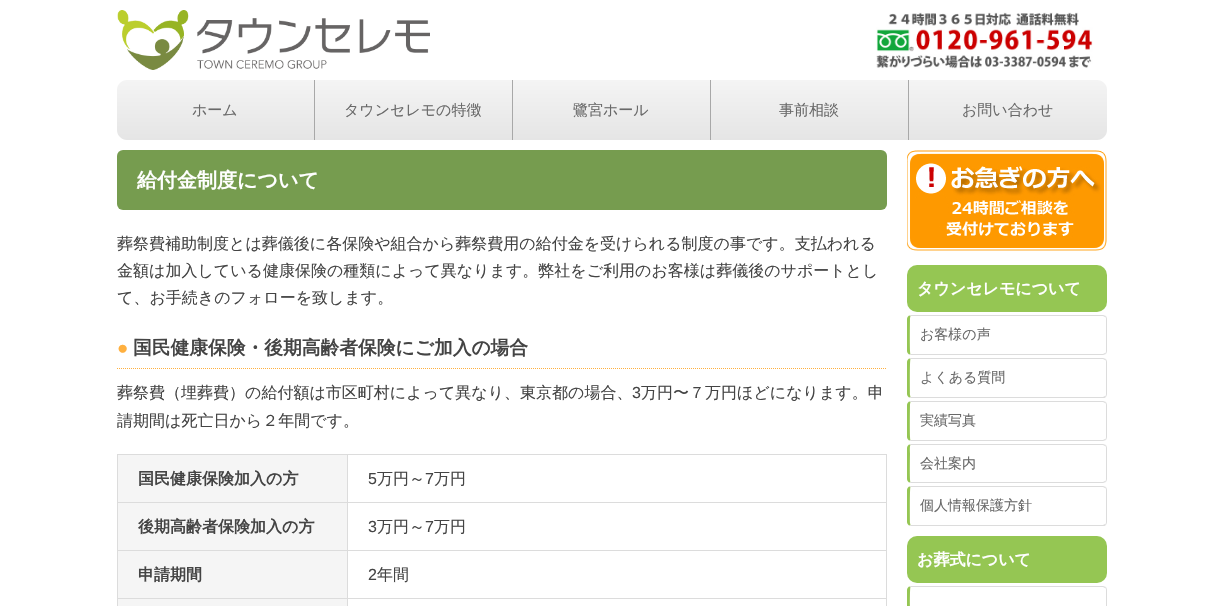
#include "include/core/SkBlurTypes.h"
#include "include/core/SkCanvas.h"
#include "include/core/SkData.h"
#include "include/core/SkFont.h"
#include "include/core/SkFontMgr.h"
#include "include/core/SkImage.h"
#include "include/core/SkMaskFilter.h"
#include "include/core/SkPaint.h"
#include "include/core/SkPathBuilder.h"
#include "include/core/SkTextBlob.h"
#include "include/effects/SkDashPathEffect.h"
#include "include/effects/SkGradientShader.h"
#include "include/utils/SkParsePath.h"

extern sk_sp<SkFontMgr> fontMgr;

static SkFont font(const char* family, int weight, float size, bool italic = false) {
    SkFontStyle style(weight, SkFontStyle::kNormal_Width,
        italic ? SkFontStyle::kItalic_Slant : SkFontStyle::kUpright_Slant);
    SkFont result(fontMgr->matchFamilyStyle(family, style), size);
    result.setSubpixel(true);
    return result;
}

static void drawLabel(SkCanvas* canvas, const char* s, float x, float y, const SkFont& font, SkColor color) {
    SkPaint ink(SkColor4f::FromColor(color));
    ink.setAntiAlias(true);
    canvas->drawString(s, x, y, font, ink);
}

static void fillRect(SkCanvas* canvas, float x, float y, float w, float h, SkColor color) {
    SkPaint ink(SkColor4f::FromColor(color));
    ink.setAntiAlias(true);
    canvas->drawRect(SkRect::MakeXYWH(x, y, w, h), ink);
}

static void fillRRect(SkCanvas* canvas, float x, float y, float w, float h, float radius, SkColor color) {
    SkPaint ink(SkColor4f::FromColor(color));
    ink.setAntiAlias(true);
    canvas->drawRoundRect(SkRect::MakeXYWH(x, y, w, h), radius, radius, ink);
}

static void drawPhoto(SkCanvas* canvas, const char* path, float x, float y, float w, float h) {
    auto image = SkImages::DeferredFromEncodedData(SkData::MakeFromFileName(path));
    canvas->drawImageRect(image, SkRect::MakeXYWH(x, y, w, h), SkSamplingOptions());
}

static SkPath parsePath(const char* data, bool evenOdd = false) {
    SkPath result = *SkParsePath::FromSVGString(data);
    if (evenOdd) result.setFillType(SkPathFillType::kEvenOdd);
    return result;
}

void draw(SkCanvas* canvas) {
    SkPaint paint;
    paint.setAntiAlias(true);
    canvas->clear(0xFFFFFFFF);
    drawPhoto(canvas, "assets/img1.png", 117, 10, 313, 60);
    drawPhoto(canvas, "assets/img2.png", 876, 12, 217, 57);
    {
        const SkColor colors[] = {0xFFF4F4F4, 0xFFE5E5E5};
        const float stops[] = {0, 1};
        const SkPoint ends[] = {{216, 80}, {216, 140}};
        paint.setShader(SkGradientShader::MakeLinear(ends, colors, stops, 2, SkTileMode::kClamp));
        paint.setAlpha(255);
    }
    canvas->drawPath(parsePath("M127 80H315V140H127C121.5 140 117 135.5 117 130V90C117 84.5 121.5 80 127 80Z"), paint);
    fillRect(canvas, 314, 80, 1, 60, 0xFFA8A8A8);
    SkFont font1 = font("WenQuanYi Zen Hei", 500, 15);
    drawLabel(canvas, "ホーム", 192, 115, font1, 0xFF696969);
    {
        const SkColor colors[] = {0xFFF4F4F4, 0xFFE5E5E5};
        const float stops[] = {0, 1};
        const SkPoint ends[] = {{414, 80}, {414, 140}};
        paint.setShader(SkGradientShader::MakeLinear(ends, colors, stops, 2, SkTileMode::kClamp));
        paint.setAlpha(255);
    }
    canvas->drawRect(SkRect::MakeXYWH(315, 80, 197, 60), paint);
    fillRect(canvas, 512, 80, 1, 60, 0xFFA8A8A8);
    drawLabel(canvas, "タウンセレモの特徴", 344, 115, font1, 0xFF696969);
    {
        const SkColor colors[] = {0xFFF4F4F4, 0xFFE5E5E5};
        const float stops[] = {0, 1};
        const SkPoint ends[] = {{612, 80}, {612, 140}};
        paint.setShader(SkGradientShader::MakeLinear(ends, colors, stops, 2, SkTileMode::kClamp));
        paint.setAlpha(255);
    }
    canvas->drawRect(SkRect::MakeXYWH(513, 80, 197, 60), paint);
    fillRect(canvas, 710, 80, 1, 60, 0xFFA8A8A8);
    drawLabel(canvas, "鷺宮ホール", 573, 115, font1, 0xFF696969);
    {
        const SkColor colors[] = {0xFFF4F4F4, 0xFFE5E5E5};
        const float stops[] = {0, 1};
        const SkPoint ends[] = {{810, 80}, {810, 140}};
        paint.setShader(SkGradientShader::MakeLinear(ends, colors, stops, 2, SkTileMode::kClamp));
        paint.setAlpha(255);
    }
    canvas->drawRect(SkRect::MakeXYWH(711, 80, 197, 60), paint);
    fillRect(canvas, 908, 80, 1, 60, 0xFFA8A8A8);
    drawLabel(canvas, "事前相談", 779, 115, font1, 0xFF696969);
    {
        const SkColor colors[] = {0xFFF4F4F4, 0xFFE5E5E5};
        const float stops[] = {0, 1};
        const SkPoint ends[] = {{1008, 80}, {1008, 140}};
        paint.setShader(SkGradientShader::MakeLinear(ends, colors, stops, 2, SkTileMode::kClamp));
        paint.setAlpha(255);
    }
    canvas->drawPath(parsePath("M909 80H1097C1102.5 80 1107 84.5 1107 90V130C1107 135.5 1102.5 140 1097 140H909Z"), paint);
    drawLabel(canvas, "お問い合わせ", 962, 115, font1, 0xFF696969);
    fillRRect(canvas, 117, 150, 770, 60, 6, 0xFF769C4F);
    SkFont font2 = font("WenQuanYi Zen Hei", 700, 20);
    drawLabel(canvas, "給付金制度について", 137, 187, font2, 0xFFFFFFFF);
    SkFont font3 = font("WenQuanYi Zen Hei", 500, 16);
    drawLabel(canvas, "葬祭費補助制度とは葬儀後に各保険や組合から葬祭費用の給付金を受けられる制度の事です。支払われる", 117, 249, font3, 0xFF444444);
    drawLabel(canvas, "金額は加入している健康保険の種類によって異なります。弊社をご利用のお客様は葬儀後のサポートとし", 117, 276, font3, 0xFF444444);
    drawLabel(canvas, "て、お手続きのフォローを致します。", 117, 303, font3, 0xFF444444);
    paint.setStroke(true);
    paint.setStrokeWidth(1);
    paint.setShader(nullptr);
    paint.setColor(0xFFFFB03F);
    paint.setPathEffect(SkDashPathEffect::Make({{1, 1}}, 0));
    canvas->drawPath(parsePath("M117 368.5H887"), paint);
    paint.setPathEffect(nullptr);
    SkFont font4 = font("Liberation Sans", 700, 18.75f);
    drawLabel(canvas, "●", 117, 354, font4, 0xFFFFB03F);
    SkFont font5 = font("WenQuanYi Zen Hei", 700, 18.75f);
    drawLabel(canvas, "国民健康保険・後期高齢者保険にご加入の場合", 133, 354, font5, 0xFF444444);
    drawLabel(canvas, "葬祭費（埋葬費）の給付額は市区町村によって異なり、東京都の場合、", 117, 398, font3, 0xFF444444);
    SkFont font6 = font("Liberation Sans", 400, 16);
    drawLabel(canvas, "3", 632, 398, font6, 0xFF444444);
    drawLabel(canvas, "万円〜７万円ほどになります。申", 641, 398, font3, 0xFF444444);
    drawLabel(canvas, "請期間は死亡日から２年間です。", 117, 426, font3, 0xFF444444);
    fillRect(canvas, 118, 455, 229, 47, 0xFFF5F5F5);
    fillRect(canvas, 347, 454, 540, 1, 0xFFDCDCDC);
    fillRect(canvas, 347, 502, 540, 1, 0xFFDCDCDC);
    fillRect(canvas, 347, 550, 540, 1, 0xFFDCDCDC);
    fillRect(canvas, 347, 598, 540, 1, 0xFFDCDCDC);
    fillRect(canvas, 117, 599, 231, 7, 0xFFF5F5F5);
    fillRect(canvas, 347, 598, 1, 8, 0xFFDCDCDC);
    fillRect(canvas, 117, 598, 231, 1, 0xFFDCDCDC);
    fillRect(canvas, 347, 550, 1, 49, 0xFFDCDCDC);
    fillRect(canvas, 117, 550, 231, 1, 0xFFDCDCDC);
    fillRect(canvas, 347, 502, 1, 49, 0xFFDCDCDC);
    fillRect(canvas, 117, 502, 231, 1, 0xFFDCDCDC);
    fillRect(canvas, 347, 454, 1, 49, 0xFFDCDCDC);
    fillRect(canvas, 117, 454, 231, 1, 0xFFDCDCDC);
    fillRect(canvas, 117, 598, 1, 8, 0xFFDCDCDC);
    fillRect(canvas, 117, 550, 1, 49, 0xFFDCDCDC);
    fillRect(canvas, 117, 502, 1, 49, 0xFFDCDCDC);
    fillRect(canvas, 117, 454, 1, 49, 0xFFDCDCDC);
    SkFont font7 = font("WenQuanYi Zen Hei", 700, 16);
    drawLabel(canvas, "国民健康保険加入の方", 138, 484, font7, 0xFF444444);
    fillRect(canvas, 886, 598, 1, 8, 0xFFDCDCDC);
    fillRect(canvas, 886, 550, 1, 49, 0xFFDCDCDC);
    fillRect(canvas, 886, 502, 1, 49, 0xFFDCDCDC);
    fillRect(canvas, 886, 454, 1, 49, 0xFFDCDCDC);
    drawLabel(canvas, "5", 368, 484, font6, 0xFF444444);
    drawLabel(canvas, "万円～", 377, 484, font3, 0xFF444444);
    drawLabel(canvas, "7", 425, 484, font6, 0xFF444444);
    drawLabel(canvas, "万円", 434, 484, font3, 0xFF444444);
    fillRect(canvas, 118, 503, 229, 47, 0xFFF5F5F5);
    drawLabel(canvas, "後期高齢者保険加入の方", 138, 532, font7, 0xFF444444);
    drawLabel(canvas, "3", 368, 532, font6, 0xFF444444);
    drawLabel(canvas, "万円～", 377, 532, font3, 0xFF444444);
    drawLabel(canvas, "7", 425, 532, font6, 0xFF444444);
    drawLabel(canvas, "万円", 434, 532, font3, 0xFF444444);
    fillRect(canvas, 118, 551, 229, 47, 0xFFF5F5F5);
    drawLabel(canvas, "申請期間", 138, 580, font7, 0xFF444444);
    drawLabel(canvas, "2", 368, 580, font6, 0xFF444444);
    drawLabel(canvas, "年間", 377, 580, font3, 0xFF444444);
    drawPhoto(canvas, "assets/img3.png", 907, 150, 200, 101);
    fillRRect(canvas, 907, 265, 200, 47, 10, 0xFF95C653);
    drawLabel(canvas, "タウンセレモについて", 917, 294, font7, 0xFFFFFFFF);
    paint.setStroke(false);
    paint.setColor(0xFFDCDCDC);
    canvas->drawPath(parsePath("M911 315L909 316H910H1103L1105 317L1106 316L1103 315Z"), paint);
    canvas->drawPath(parsePath("M1107 351V319C1107 318 1106.5 317 1106 316L1105 317C1106 317 1106 318 1106 319V351C1106 352 1106 353 1105 353L1106 354C1106.5 353 1107 352 1107 351Z"), paint);
    canvas->drawPath(parsePath("M911 355H1103C1104 355 1105 354 1106 354L1105 353L1103 354H910H909Z"), paint);
    paint.setColor(0xFF95C653);
    canvas->drawPath(parsePath("M907 319V351C907 352.5 908 353.5 909 354.5L910.5 354C909.5 353 910 321.5 910 318L910.5 316L909 315.5C908 316.5 907 317.5 907 319Z"), paint);
    SkFont font8 = font("WenQuanYi Zen Hei", 500, 14);
    drawLabel(canvas, "お客様の声", 920, 339, font8, 0xFF696969);
    paint.setColor(0xFFDCDCDC);
    canvas->drawPath(parsePath("M911 358L909 359H910H1103L1105 360L1106 359L1103 358Z"), paint);
    canvas->drawPath(parsePath("M1107 394V362C1107 361 1106.5 360 1106 359L1105 360C1106 360 1106 361 1106 362V394C1106 395 1106 396 1105 396L1106 397C1106.5 396 1107 395 1107 394Z"), paint);
    canvas->drawPath(parsePath("M911 398H1103C1104 398 1105 398 1106 397L1105 396L1103 397H910H909Z"), paint);
    paint.setColor(0xFF95C653);
    canvas->drawPath(parsePath("M907 362V394C907 395.5 908 396.5 909 397.5L910.5 397L910 395C910 391.5 909.5 360 910.5 359L909 358.5C908 359.5 907 360.5 907 362Z"), paint);
    drawLabel(canvas, "よくある質問", 920, 382, font8, 0xFF696969);
    paint.setColor(0xFFDCDCDC);
    canvas->drawPath(parsePath("M911 401L909 402H910H1103L1105 403L1106 402L1103 401Z"), paint);
    canvas->drawPath(parsePath("M1107 437V405C1107 404 1106.5 403 1106 402L1105 403C1106 403 1106 404 1106 405V437C1106 438 1106 439 1105 439L1106 440C1106.5 439 1107 438 1107 437Z"), paint);
    canvas->drawPath(parsePath("M911 441H1103C1104 441 1105 440 1106 440L1105 439L1103 440H910H909Z"), paint);
    paint.setColor(0xFF95C653);
    canvas->drawPath(parsePath("M907 405V437C907 438.5 908 439.5 909 440.5L910.5 440C909.5 439 910 407.5 910 404L910.5 402L909 401.5C908 402.5 907 403.5 907 405Z"), paint);
    drawLabel(canvas, "実績写真", 920, 425, font8, 0xFF696969);
    paint.setColor(0xFFDCDCDC);
    canvas->drawPath(parsePath("M911 444L909 445H910H1103L1105 446L1106 445L1103 444Z"), paint);
    canvas->drawPath(parsePath("M1107 479V448C1107 447 1106.5 446 1106 445L1105 446C1106 446 1106 447 1106 448V479C1106 480 1106 481 1105 481L1106 482C1106.5 481 1107 480 1107 479Z"), paint);
    canvas->drawPath(parsePath("M911 483H1103C1104 483 1105 482 1106 482L1105 481L1103 482H910H909Z"), paint);
    paint.setColor(0xFF95C653);
    canvas->drawPath(parsePath("M907 448V479C907 480.5 908 481.5 909 482.5L910.5 482C909.5 481 910 456 910 453C910 452.5 909.5 446 910.5 445L909 444.5C908 445.5 907 446.5 907 448Z"), paint);
    drawLabel(canvas, "会社案内", 920, 468, font8, 0xFF696969);
    paint.setColor(0xFFDCDCDC);
    canvas->drawPath(parsePath("M911 486L909 487H910H1103L1105 488L1106 487L1103 486Z"), paint);
    canvas->drawPath(parsePath("M1107 522V490C1107 489 1106.5 488 1106 487L1105 488C1106 488 1106 489 1106 490V522C1106 523 1106 524 1105 524L1106 525C1106.5 524 1107 523 1107 522Z"), paint);
    canvas->drawPath(parsePath("M911 526H1103C1104 526 1105 526 1106 525L1105 524L1103 525H910H909Z"), paint);
    paint.setColor(0xFF95C653);
    canvas->drawPath(parsePath("M907 490V522C907 523.5 908 524.5 909 525.5L910.5 525L910 523C910 519.5 909.5 488 910.5 487L909 486.5C908 487.5 907 488.5 907 490Z"), paint);
    drawLabel(canvas, "個人情報保護方針", 920, 510, font8, 0xFF696969);
    fillRRect(canvas, 907, 536, 200, 47, 10, 0xFF95C653);
    drawLabel(canvas, "お葬式について", 917, 565, font7, 0xFFFFFFFF);
    paint.setColor(0xFFDCDCDC);
    canvas->drawPath(parsePath("M911 586L909 587H910H1103L1105 588L1106 587L1103 586Z"), paint);
    canvas->drawPath(parsePath("M1107 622V590C1107 589 1106.5 588 1106 587L1105 588C1106 588 1106 589 1106 590V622C1106 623 1106 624 1105 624L1106 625C1106.5 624 1107 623 1107 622Z"), paint);
    paint.setColor(0xFF95C653);
    canvas->drawPath(parsePath("M907 590V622C907 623.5 908 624.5 909 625.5L910.5 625L910 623C910 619.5 909.5 588 910.5 587L909 586.5C908 587.5 907 588.5 907 590Z"), paint);
}
